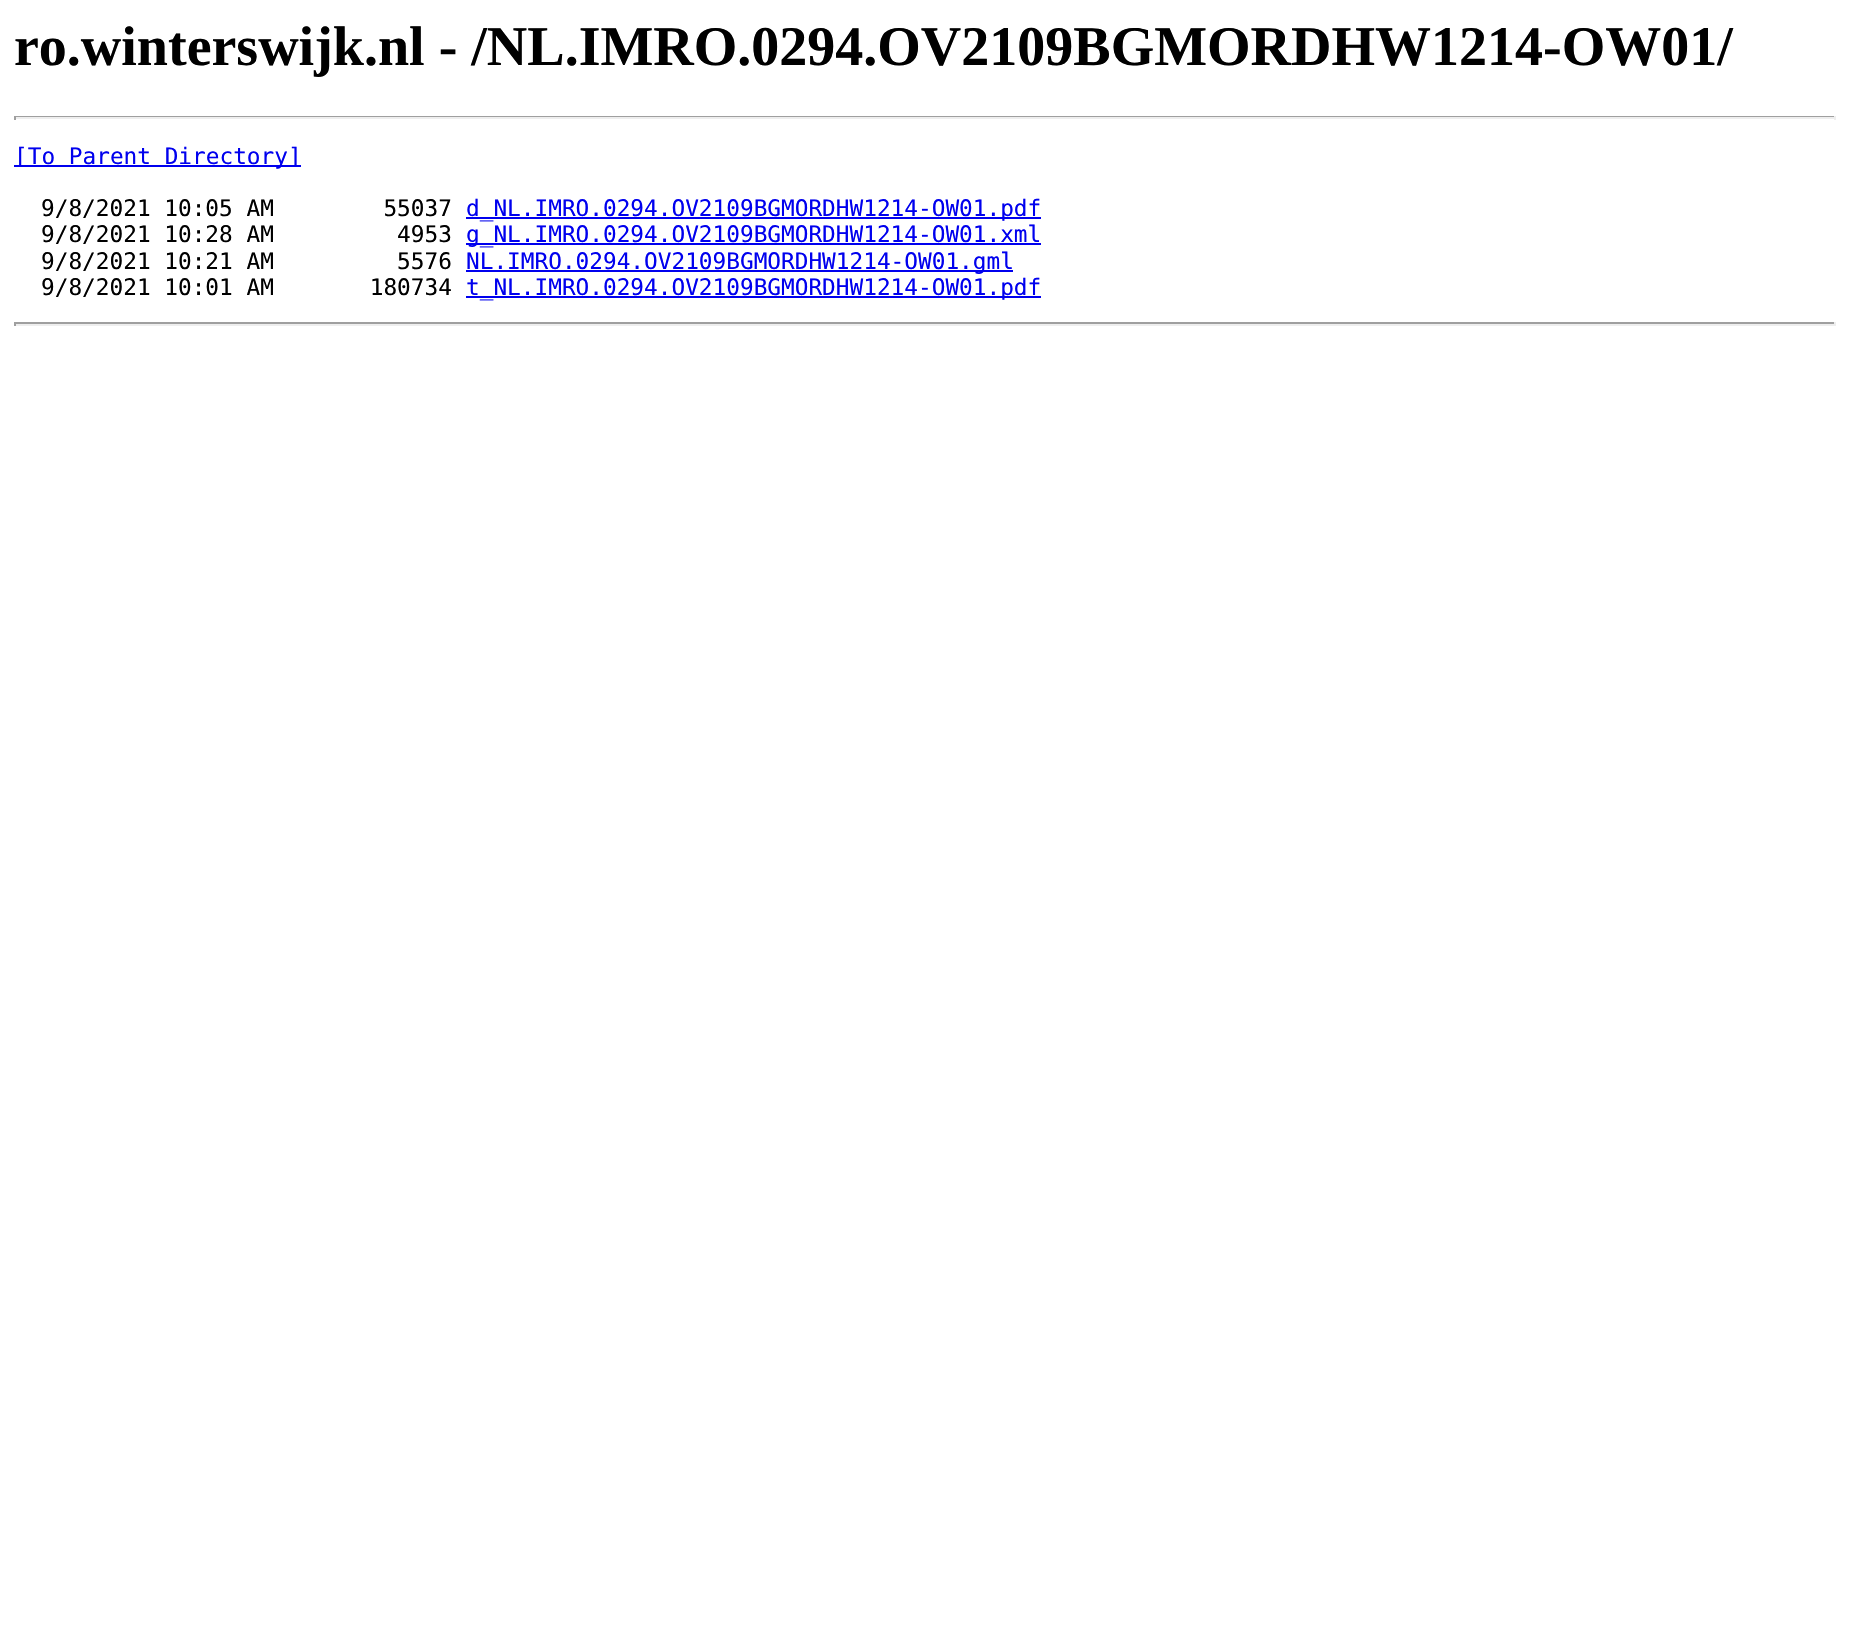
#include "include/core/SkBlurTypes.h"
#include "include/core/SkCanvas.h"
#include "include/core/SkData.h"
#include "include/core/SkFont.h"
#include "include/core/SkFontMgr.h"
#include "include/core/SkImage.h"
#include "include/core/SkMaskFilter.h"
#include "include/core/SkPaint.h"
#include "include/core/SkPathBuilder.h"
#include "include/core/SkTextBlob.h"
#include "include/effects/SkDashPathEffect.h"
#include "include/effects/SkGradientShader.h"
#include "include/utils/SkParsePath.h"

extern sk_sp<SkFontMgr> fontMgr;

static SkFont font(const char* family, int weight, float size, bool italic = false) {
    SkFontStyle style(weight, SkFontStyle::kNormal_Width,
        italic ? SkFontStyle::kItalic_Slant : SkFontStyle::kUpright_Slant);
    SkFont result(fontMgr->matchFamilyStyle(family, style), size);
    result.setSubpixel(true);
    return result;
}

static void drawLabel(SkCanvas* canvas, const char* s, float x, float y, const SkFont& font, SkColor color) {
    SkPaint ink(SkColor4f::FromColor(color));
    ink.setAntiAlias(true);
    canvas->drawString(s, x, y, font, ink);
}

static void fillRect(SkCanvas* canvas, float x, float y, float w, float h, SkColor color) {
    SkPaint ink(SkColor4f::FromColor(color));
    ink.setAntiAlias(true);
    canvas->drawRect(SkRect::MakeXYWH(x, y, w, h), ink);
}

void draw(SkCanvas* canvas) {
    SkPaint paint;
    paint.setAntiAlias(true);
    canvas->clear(0xFFFFFFFF);
    SkFont font1 = font("Liberation Serif", 700, 56);
    drawLabel(canvas, "ro.winterswijk.nl - /NL.IMRO.0294.OV2109BGMORDHW1214-OW01/", 14, 65, font1, 0xFF000000);
    fillRect(canvas, 14, 116, 1822, 1, 0xFF9F9F9F);
    fillRect(canvas, 1834, 116, 2, 4, 0xFFEEEEEE);
    fillRect(canvas, 14, 117, 1822, 2, 0xFFEEEEEE);
    fillRect(canvas, 14, 116, 2, 4, 0xFF9F9F9F);
    fillRect(canvas, 14, 165, 287, 2, 0xFF0000EE);
    SkFont font2 = font("DejaVu Sans Mono", 400, 22.75f);
    drawLabel(canvas, "[To Parent Directory]", 14, 164, font2, 0xFF0000EE);
    drawLabel(canvas, "9/8/2021 10:05 AM        55037", 41, 216, font2, 0xFF000000);
    fillRect(canvas, 466, 217, 575, 2, 0xFF0000EE);
    drawLabel(canvas, "d_NL.IMRO.0294.OV2109BGMORDHW1214-OW01.pdf", 466, 216, font2, 0xFF0000EE);
    drawLabel(canvas, "9/8/2021 10:28 AM         4953", 41, 242, font2, 0xFF000000);
    fillRect(canvas, 466, 243, 575, 2, 0xFF0000EE);
    drawLabel(canvas, "g_NL.IMRO.0294.OV2109BGMORDHW1214-OW01.xml", 466, 242, font2, 0xFF0000EE);
    drawLabel(canvas, "9/8/2021 10:21 AM         5576", 41, 269, font2, 0xFF000000);
    fillRect(canvas, 466, 270, 547, 2, 0xFF0000EE);
    drawLabel(canvas, "NL.IMRO.0294.OV2109BGMORDHW1214-OW01.gml", 466, 269, font2, 0xFF0000EE);
    drawLabel(canvas, "9/8/2021 10:01 AM       180734", 41, 295, font2, 0xFF000000);
    fillRect(canvas, 466, 296, 575, 2, 0xFF0000EE);
    drawLabel(canvas, "t_NL.IMRO.0294.OV2109BGMORDHW1214-OW01.pdf", 466, 295, font2, 0xFF0000EE);
    fillRect(canvas, 14, 322, 1822, 2, 0xFF9F9F9F);
    fillRect(canvas, 1834, 322, 2, 4, 0xFFEEEEEE);
    fillRect(canvas, 14, 324, 1822, 2, 0xFFEEEEEE);
    fillRect(canvas, 14, 322, 2, 4, 0xFF9F9F9F);
}
